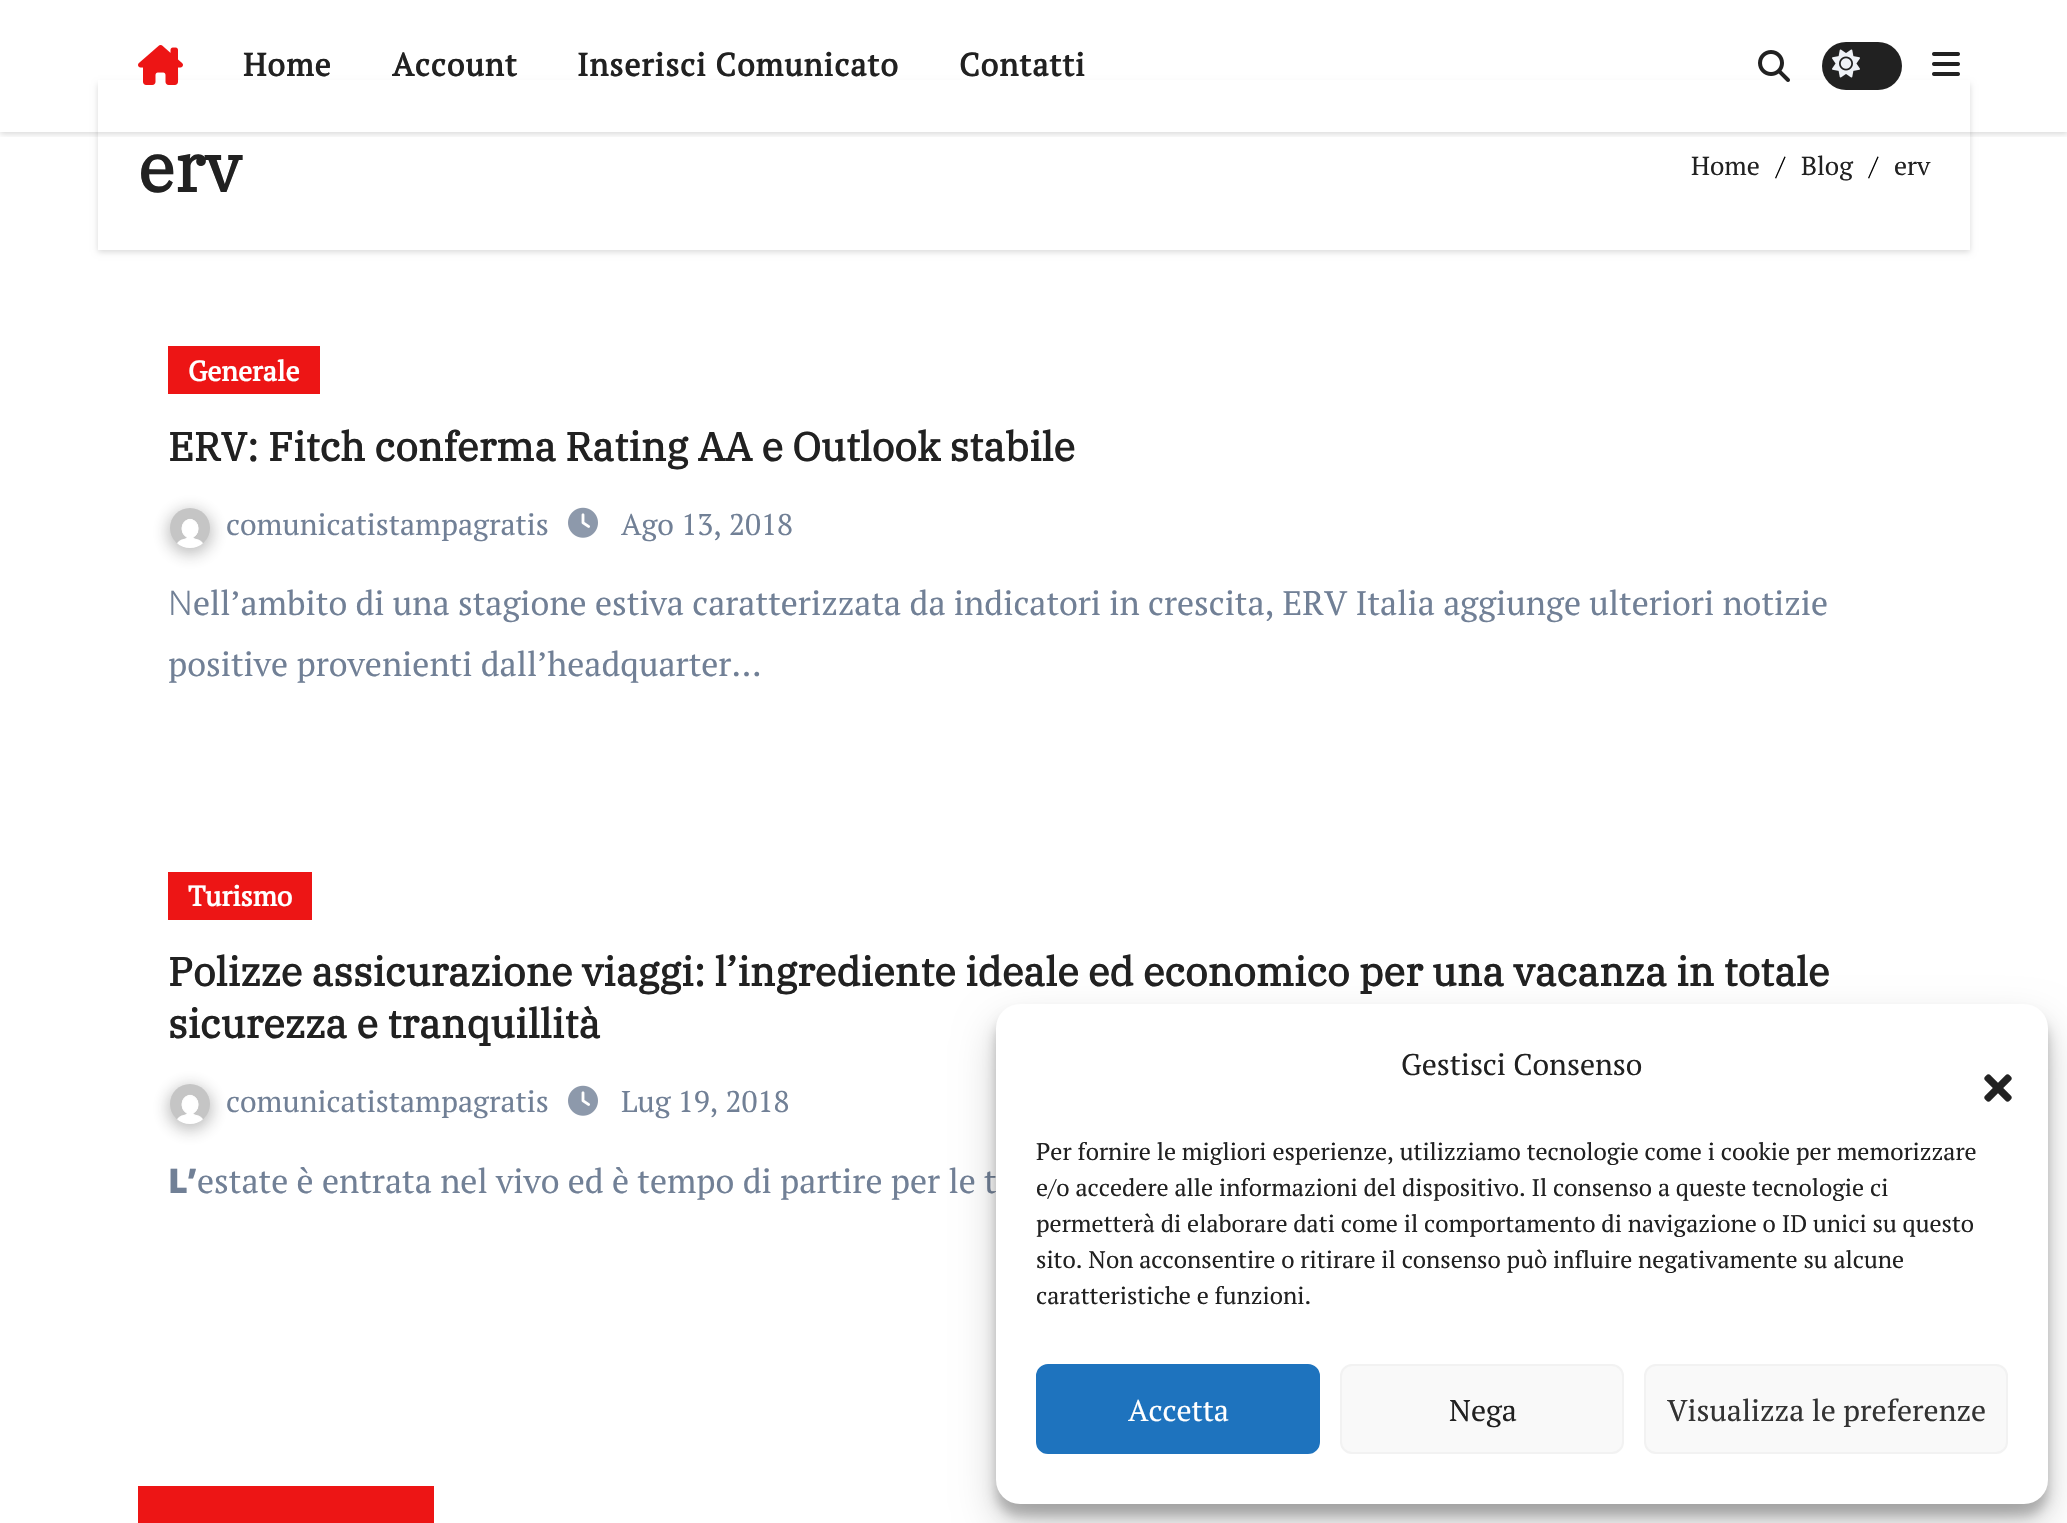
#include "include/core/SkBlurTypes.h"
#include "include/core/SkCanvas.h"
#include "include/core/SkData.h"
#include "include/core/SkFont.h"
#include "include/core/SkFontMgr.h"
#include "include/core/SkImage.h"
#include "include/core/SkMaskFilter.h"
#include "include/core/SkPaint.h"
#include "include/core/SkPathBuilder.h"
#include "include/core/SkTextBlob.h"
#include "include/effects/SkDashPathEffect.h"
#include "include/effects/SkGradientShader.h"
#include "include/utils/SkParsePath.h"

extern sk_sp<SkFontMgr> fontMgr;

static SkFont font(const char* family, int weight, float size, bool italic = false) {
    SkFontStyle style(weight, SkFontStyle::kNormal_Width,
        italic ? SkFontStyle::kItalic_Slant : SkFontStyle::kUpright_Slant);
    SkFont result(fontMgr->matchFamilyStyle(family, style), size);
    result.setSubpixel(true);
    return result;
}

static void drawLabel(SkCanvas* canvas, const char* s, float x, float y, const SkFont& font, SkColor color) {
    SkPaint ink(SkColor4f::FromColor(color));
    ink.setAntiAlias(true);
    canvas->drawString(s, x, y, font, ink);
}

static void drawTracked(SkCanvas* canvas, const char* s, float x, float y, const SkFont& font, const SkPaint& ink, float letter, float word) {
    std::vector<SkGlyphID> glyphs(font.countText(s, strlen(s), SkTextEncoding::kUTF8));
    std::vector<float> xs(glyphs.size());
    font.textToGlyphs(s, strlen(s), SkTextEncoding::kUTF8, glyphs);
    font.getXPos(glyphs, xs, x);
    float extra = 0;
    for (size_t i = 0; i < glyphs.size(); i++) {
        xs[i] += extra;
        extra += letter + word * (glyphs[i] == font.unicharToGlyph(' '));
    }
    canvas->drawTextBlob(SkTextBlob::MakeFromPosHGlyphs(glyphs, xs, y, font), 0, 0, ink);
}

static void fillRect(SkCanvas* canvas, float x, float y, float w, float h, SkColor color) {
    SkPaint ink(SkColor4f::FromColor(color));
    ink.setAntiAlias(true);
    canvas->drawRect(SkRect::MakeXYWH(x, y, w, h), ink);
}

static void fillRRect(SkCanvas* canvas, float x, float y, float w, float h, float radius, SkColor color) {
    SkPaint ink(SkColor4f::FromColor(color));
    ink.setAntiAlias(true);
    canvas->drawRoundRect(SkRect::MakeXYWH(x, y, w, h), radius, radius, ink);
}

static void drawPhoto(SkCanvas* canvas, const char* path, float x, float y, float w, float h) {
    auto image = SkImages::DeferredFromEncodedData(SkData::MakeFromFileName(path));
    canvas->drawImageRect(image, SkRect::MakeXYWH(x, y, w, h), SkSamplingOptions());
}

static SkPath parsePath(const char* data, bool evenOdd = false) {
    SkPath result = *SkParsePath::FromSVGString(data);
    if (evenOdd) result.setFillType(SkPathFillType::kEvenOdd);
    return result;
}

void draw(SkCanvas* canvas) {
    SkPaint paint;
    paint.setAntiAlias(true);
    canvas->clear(0xFFFFFFFF);
    canvas->save();
    canvas->clipRect(SkRect::MakeXYWH(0, 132, 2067, 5));
    paint.setColor(0x26000000);
    paint.setMaskFilter(SkMaskFilter::MakeBlur(kNormal_SkBlurStyle, 3));
    canvas->drawRect(SkRect::MakeXYWH(0, 2, 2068, 132), paint);
    paint.setMaskFilter(nullptr);
    canvas->restore();
    canvas->save();
    canvas->clipPath(parsePath("M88 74H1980V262H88ZM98 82H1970V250H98Z", true), true);
    paint.setMaskFilter(SkMaskFilter::MakeBlur(kNormal_SkBlurStyle, 3));
    canvas->drawRect(SkRect::MakeXYWH(98, 84, 1872, 168), paint);
    paint.setMaskFilter(nullptr);
    canvas->restore();
    fillRect(canvas, 98, 80, 1872, 2, 0xFFFFFFFF);
    drawPhoto(canvas, "assets/img1.png", 138, 45, 45, 40);
    SkFont font1 = font("PT Serif", 700, 32);
    paint.setColor(0xFF212121);
    drawTracked(canvas, "Home", 243, 76, font1, paint, 1, 0);
    drawTracked(canvas, "Account", 392, 76, font1, paint, 1, 0);
    drawTracked(canvas, "Inserisci Comunicato", 577, 76, font1, paint, 1, 0);
    drawTracked(canvas, "Contatti", 959, 76, font1, paint, 1, 0);
    drawPhoto(canvas, "assets/img2.png", 1758, 50, 32, 32);
    fillRRect(canvas, 1822, 42, 80, 48, 24, 0xFF212121);
    drawPhoto(canvas, "assets/img3.png", 1832, 49, 28, 29);
    drawPhoto(canvas, "assets/img4.png", 1932, 52, 28, 24);
    SkFont font2 = font("IBM Plex Serif", 700, 68);
    drawLabel(canvas, "erv", 138, 192, font2, 0xFF212121);
    SkFont font3 = font("PT Serif", 400, 26);
    drawLabel(canvas, "Home", 1691, 175, font3, 0xFF212121);
    drawLabel(canvas, "/", 1776, 175, font3, 0xFF000000);
    drawLabel(canvas, "Blog", 1801, 175, font3, 0xFF212121);
    drawLabel(canvas, "/", 1869, 175, font3, 0xFF000000);
    drawLabel(canvas, "erv", 1894, 175, font3, 0xFF212121);
    fillRect(canvas, 168, 346, 152, 48, 0xFFED1515);
    SkFont font4 = font("PT Serif", 700, 28);
    drawLabel(canvas, "Generale", 188, 381, font4, 0xFFFFFFFF);
    SkFont font5 = font("IBM Plex Serif", 700, 40);
    drawLabel(canvas, "ERV: Fitch conferma Rating AA e Outlook stabile", 168, 461, font5, 0xFF212121);
    paint.setColor(0x4D212121);
    paint.setMaskFilter(SkMaskFilter::MakeBlur(kNormal_SkBlurStyle, 8));
    canvas->drawRoundRect(SkRect::MakeXYWH(168, 510, 44, 44), 22, 22, paint);
    paint.setMaskFilter(nullptr);
    drawPhoto(canvas, "assets/img5.png", 170, 508, 40, 40);
    SkFont font6 = font("PT Serif", 400, 30);
    drawLabel(canvas, "comunicatistampagratis", 226, 535, font6, 0xFF718096);
    drawPhoto(canvas, "assets/img6.png", 568, 507, 30, 31);
    drawLabel(canvas, "Ago 13, 2018", 621, 535, font6, 0xFF718096);
    SkFont font7 = font("Noto Sans", 300, 34);
    drawLabel(canvas, "N", 168, 615, font7, 0xFF718096);
    SkFont font8 = font("PT Serif", 400, 34);
    drawLabel(canvas, "ell’ambito di una stagione estiva caratterizzata da indicatori in crescita, ERV Italia aggiunge ulteriori notizie", 193, 615, font8, 0xFF718096);
    drawLabel(canvas, "positive provenienti dall’headquarter…", 168, 676, font8, 0xFF718096);
    fillRect(canvas, 168, 872, 144, 48, 0xFFED1515);
    drawLabel(canvas, "Turismo", 188, 906, font4, 0xFFFFFFFF);
    drawLabel(canvas, "Polizze assicurazione viaggi: l’ingrediente ideale ed economico per una vacanza in totale", 168, 986, font5, 0xFF212121);
    drawLabel(canvas, "sicurezza e tranquillità", 168, 1038, font5, 0xFF212121);
    paint.setMaskFilter(SkMaskFilter::MakeBlur(kNormal_SkBlurStyle, 8));
    canvas->drawRoundRect(SkRect::MakeXYWH(168, 1086, 44, 44), 22, 22, paint);
    paint.setMaskFilter(nullptr);
    drawPhoto(canvas, "assets/img7.png", 170, 1084, 40, 40);
    drawLabel(canvas, "comunicatistampagratis", 226, 1112, font6, 0xFF718096);
    drawPhoto(canvas, "assets/img6.png", 568, 1085, 30, 31);
    drawLabel(canvas, "Lug 19, 2018", 621, 1112, font6, 0xFF718096);
    SkFont font9 = font("Noto Sans", 900, 34);
    drawLabel(canvas, "L’", 168, 1193, font9, 0xFF718096);
    drawLabel(canvas, "estate è entrata nel vivo ed è tempo di partire per le t", 197, 1193, font8, 0xFF718096);
    fillRect(canvas, 138, 1486, 296, 37, 0xFFED1515);
    paint.setColor(0x3B000000);
    paint.setMaskFilter(SkMaskFilter::MakeBlur(kNormal_SkBlurStyle, 6));
    canvas->drawRoundRect(SkRect::MakeXYWH(996, 1016, 1052, 500), 24, 24, paint);
    paint.setMaskFilter(nullptr);
    paint.setColor(0x30000000);
    paint.setMaskFilter(SkMaskFilter::MakeBlur(kNormal_SkBlurStyle, 20));
    canvas->drawRoundRect(SkRect::MakeXYWH(996, 1024, 1052, 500), 24, 24, paint);
    paint.setMaskFilter(nullptr);
    fillRRect(canvas, 996, 1004, 1052, 500, 24, 0xFFFFFFFF);
    drawLabel(canvas, "Gestisci Consenso", 1401, 1075, font6, 0xFF212121);
    drawPhoto(canvas, "assets/img8.png", 1984, 1074, 28, 28);
    SkFont font10 = font("PT Serif", 400, 24);
    drawLabel(canvas, "Per fornire le migliori esperienze, utilizziamo tecnologie come i cookie per memorizzare", 1036, 1160, font10, 0xFF212121);
    drawLabel(canvas, "e/o accedere alle informazioni del dispositivo. Il consenso a queste tecnologie ci", 1036, 1196, font10, 0xFF212121);
    drawLabel(canvas, "permetterà di elaborare dati come il comportamento di navigazione o ID unici su questo", 1036, 1232, font10, 0xFF212121);
    drawLabel(canvas, "sito. Non acconsentire o ritirare il consenso può influire negativamente su alcune", 1036, 1268, font10, 0xFF212121);
    drawLabel(canvas, "caratteristiche e funzioni.", 1036, 1304, font10, 0xFF212121);
    paint.setColor(0xFF1E73BE);
    canvas->drawRoundRect(SkRect::MakeXYWH(1037, 1365, 282, 88), 11, 11, paint);
    paint.setStroke(true);
    paint.setStrokeWidth(2);
    canvas->drawRoundRect(SkRect::MakeXYWH(1037, 1365, 282, 88), 11, 11, paint);
    drawLabel(canvas, "Accetta", 1128, 1421, font6, 0xFFFFFFFF);
    paint.setStroke(false);
    paint.setColor(0xFFF9F9F9);
    canvas->drawRoundRect(SkRect::MakeXYWH(1341, 1365, 282, 88), 11, 11, paint);
    paint.setStroke(true);
    paint.setColor(0xFFF2F2F2);
    canvas->drawRoundRect(SkRect::MakeXYWH(1341, 1365, 282, 88), 11, 11, paint);
    drawLabel(canvas, "Nega", 1449, 1421, font6, 0xFF212121);
    paint.setStroke(false);
    paint.setColor(0xFFF9F9F9);
    canvas->drawRoundRect(SkRect::MakeXYWH(1645, 1365, 362, 88), 11, 11, paint);
    paint.setStroke(true);
    paint.setColor(0xFFF2F2F2);
    canvas->drawRoundRect(SkRect::MakeXYWH(1645, 1365, 362, 88), 11, 11, paint);
    drawLabel(canvas, "Visualizza le preferenze", 1667, 1421, font6, 0xFF333333);
}
